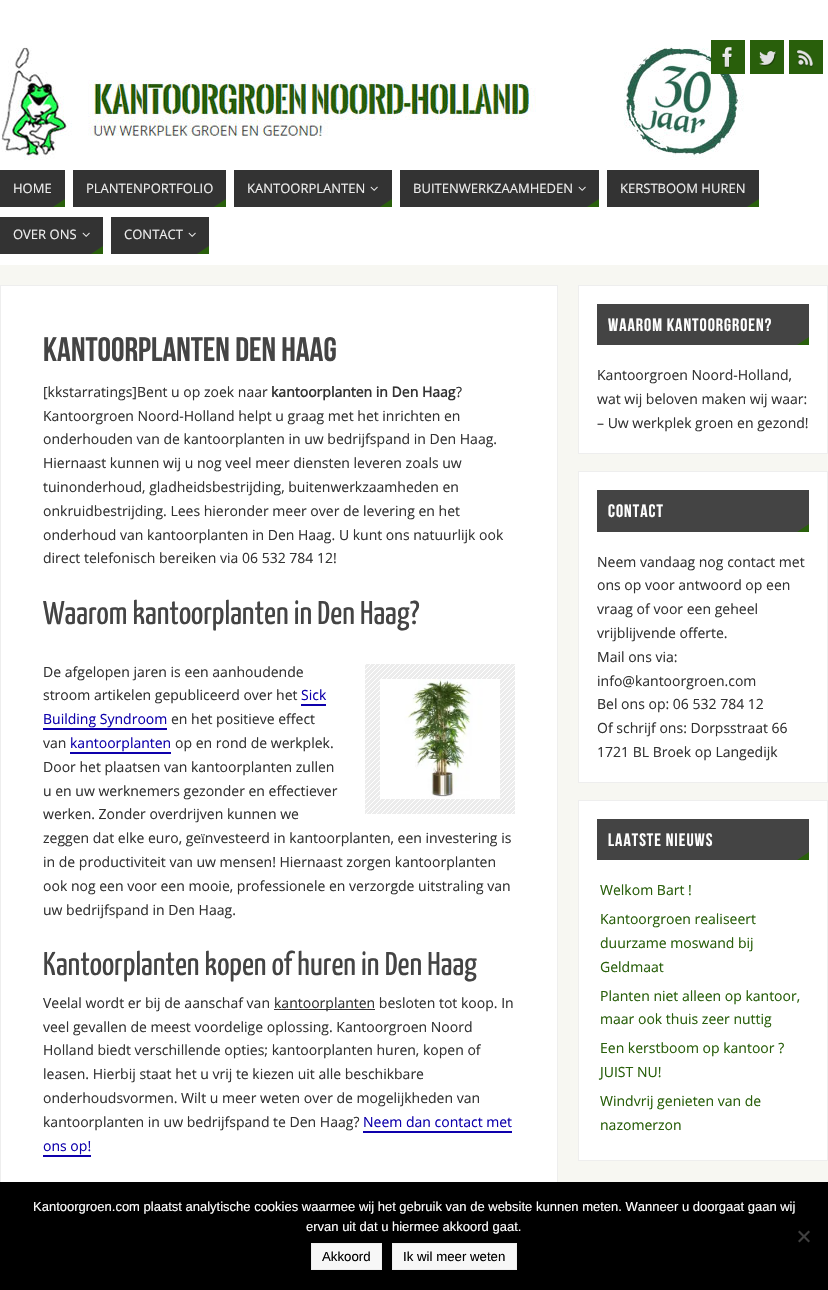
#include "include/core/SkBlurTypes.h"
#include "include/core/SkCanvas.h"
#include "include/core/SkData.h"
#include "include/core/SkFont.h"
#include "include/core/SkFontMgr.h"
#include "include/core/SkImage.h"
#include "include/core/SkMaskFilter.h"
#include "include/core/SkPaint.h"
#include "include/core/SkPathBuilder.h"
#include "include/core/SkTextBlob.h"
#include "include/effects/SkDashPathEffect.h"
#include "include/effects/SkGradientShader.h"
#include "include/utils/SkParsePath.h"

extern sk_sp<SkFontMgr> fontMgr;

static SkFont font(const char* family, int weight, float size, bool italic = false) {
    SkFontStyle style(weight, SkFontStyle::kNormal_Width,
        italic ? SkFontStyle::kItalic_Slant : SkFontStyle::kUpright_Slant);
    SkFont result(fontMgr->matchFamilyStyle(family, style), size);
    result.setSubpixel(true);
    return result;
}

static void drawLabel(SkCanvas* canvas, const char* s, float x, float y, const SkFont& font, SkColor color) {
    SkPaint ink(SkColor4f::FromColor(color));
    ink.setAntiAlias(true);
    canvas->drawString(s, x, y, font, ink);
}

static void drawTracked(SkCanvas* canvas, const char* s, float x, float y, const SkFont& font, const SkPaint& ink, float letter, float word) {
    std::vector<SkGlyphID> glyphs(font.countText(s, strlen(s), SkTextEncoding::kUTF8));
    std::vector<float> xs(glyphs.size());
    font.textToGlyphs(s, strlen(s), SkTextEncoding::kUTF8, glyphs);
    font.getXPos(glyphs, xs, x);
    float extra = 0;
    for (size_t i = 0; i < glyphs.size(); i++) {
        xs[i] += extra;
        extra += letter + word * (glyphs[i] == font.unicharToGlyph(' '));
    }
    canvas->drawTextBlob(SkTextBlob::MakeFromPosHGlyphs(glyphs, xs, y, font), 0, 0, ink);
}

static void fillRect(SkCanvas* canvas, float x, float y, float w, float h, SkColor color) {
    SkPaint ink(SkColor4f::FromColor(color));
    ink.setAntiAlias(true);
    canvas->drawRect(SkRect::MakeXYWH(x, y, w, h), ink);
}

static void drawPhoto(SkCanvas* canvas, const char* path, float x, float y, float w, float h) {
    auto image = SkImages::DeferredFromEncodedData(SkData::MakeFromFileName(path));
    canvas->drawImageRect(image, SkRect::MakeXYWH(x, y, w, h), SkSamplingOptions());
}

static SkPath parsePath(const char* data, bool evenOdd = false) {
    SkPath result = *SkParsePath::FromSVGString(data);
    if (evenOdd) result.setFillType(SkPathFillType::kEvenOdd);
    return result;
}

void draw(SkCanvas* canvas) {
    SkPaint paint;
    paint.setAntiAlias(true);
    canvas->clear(0xFFF7F7F2);
    fillRect(canvas, 0, 0, 828, 265, 0xFFFFFFFF);
    drawPhoto(canvas, "assets/img1.png", 1, 46, 743, 114);
    fillRect(canvas, 711, 40, 34, 34, 0xFF295F0B);
    drawPhoto(canvas, "assets/img2.png", 721, 47, 12, 22);
    fillRect(canvas, 750, 40, 34, 34, 0xFF295F0B);
    drawPhoto(canvas, "assets/img3.png", 759, 51, 18, 15);
    fillRect(canvas, 789, 40, 34, 34, 0xFF295F0B);
    drawPhoto(canvas, "assets/img4.png", 796, 50, 18, 18);
    fillRect(canvas, 0, 170, 65, 37, 0xFF333333);
    SkFont font1 = font("Open Sans", 400, 13);
    drawLabel(canvas, "HOME", 13, 193, font1, 0xFFEEEEEE);
    paint.setColor(0xFF295F0B);
    canvas->drawPath(parsePath("M65 207H53L65 199Z"), paint);
    fillRect(canvas, 73, 170, 153, 37, 0xFF333333);
    drawLabel(canvas, "PLANTENPORTFOLIO", 86, 193, font1, 0xFFEEEEEE);
    canvas->drawPath(parsePath("M226 207H214L226 199Z"), paint);
    fillRect(canvas, 234, 170, 158, 37, 0xFF333333);
    drawLabel(canvas, "KANTOORPLANTEN", 247, 193, font1, 0xFFEEEEEE);
    drawPhoto(canvas, "assets/img5.png", 370, 186, 8, 5);
    canvas->drawPath(parsePath("M392 207H380L392 199Z"), paint);
    fillRect(canvas, 400, 170, 199, 37, 0xFF333333);
    drawLabel(canvas, "BUITENWERKZAAMHEDEN", 413, 193, font1, 0xFFEEEEEE);
    drawPhoto(canvas, "assets/img5.png", 578, 186, 8, 5);
    canvas->drawPath(parsePath("M599 207H587L599 199Z"), paint);
    fillRect(canvas, 607, 170, 152, 37, 0xFF333333);
    drawLabel(canvas, "KERSTBOOM HUREN", 620, 193, font1, 0xFFEEEEEE);
    canvas->drawPath(parsePath("M759 207H747L759 199Z"), paint);
    fillRect(canvas, 0, 217, 103, 37, 0xFF333333);
    drawLabel(canvas, "OVER ONS", 13, 239, font1, 0xFFEEEEEE);
    drawPhoto(canvas, "assets/img5.png", 82, 232, 8, 5);
    canvas->drawPath(parsePath("M103 254H91L103 246Z"), paint);
    fillRect(canvas, 111, 217, 98, 37, 0xFF333333);
    drawLabel(canvas, "CONTACT", 124, 239, font1, 0xFFEEEEEE);
    drawPhoto(canvas, "assets/img5.png", 188, 232, 8, 5);
    canvas->drawPath(parsePath("M209 254H197L209 246Z"), paint);
    fillRect(canvas, 1, 286, 556, 896, 0xFFFFFFFF);
    paint.setStroke(true);
    paint.setStrokeWidth(1);
    paint.setColor(0xFFEEEEEE);
    canvas->drawRect(SkRect::MakeXYWH(0.5f, 285.5f, 557, 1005), paint);
    SkFont font2 = font("Bebas Neue", 400, 34);
    drawLabel(canvas, "Kantoorplanten Den Haag", 43, 361, font2, 0xFF444444);
    SkFont font3 = font("Open Sans", 400, 14);
    drawLabel(canvas, "[kkstarratings]Bent u op zoek naar", 43, 397, font3, 0xFF333333);
    SkFont font4 = font("Open Sans", 700, 14);
    drawLabel(canvas, "kantoorplanten in Den Haag", 271, 397, font4, 0xFF333333);
    drawLabel(canvas, "?", 456, 397, font3, 0xFF333333);
    drawLabel(canvas, "Kantoorgroen Noord-Holland helpt u graag met het inrichten en", 43, 421, font3, 0xFF333333);
    drawLabel(canvas, "onderhouden van de kantoorplanten in uw bedrijfspand in Den Haag.", 43, 444, font3, 0xFF333333);
    drawLabel(canvas, "Hiernaast kunnen wij u nog veel meer diensten leveren zoals uw", 43, 468, font3, 0xFF333333);
    drawLabel(canvas, "tuinonderhoud, gladheidsbestrijding, buitenwerkzaamheden en", 43, 492, font3, 0xFF333333);
    drawLabel(canvas, "onkruidbestrijding. Lees hieronder meer over de levering en het", 43, 516, font3, 0xFF333333);
    drawLabel(canvas, "onderhoud van kantoorplanten in Den Haag. U kunt ons natuurlijk ook", 43, 540, font3, 0xFF333333);
    drawLabel(canvas, "direct telefonisch bereiken via 06 532 784 12!", 43, 563, font3, 0xFF333333);
    SkFont font5 = font("Yanone Kaffeesatz", 400, 33);
    drawLabel(canvas, "Waarom kantoorplanten in Den Haag?", 43, 624, font5, 0xFF444444);
    drawPhoto(canvas, "assets/img6.png", 365, 664, 150, 150);
    drawLabel(canvas, "De afgelopen jaren is een aanhoudende", 43, 677, font3, 0xFF333333);
    drawLabel(canvas, "stroom artikelen gepubliceerd over het", 43, 700, font3, 0xFF333333);
    drawLabel(canvas, "Sick", 301, 700, font3, 0xFF0E00AC);
    fillRect(canvas, 301, 704, 25, 2, 0xFF0E00AC);
    drawLabel(canvas, "Building Syndroom", 43, 724, font3, 0xFF0E00AC);
    fillRect(canvas, 43, 728, 124, 2, 0xFF0E00AC);
    drawLabel(canvas, "en het positieve effect", 171, 724, font3, 0xFF333333);
    drawLabel(canvas, "van", 43, 748, font3, 0xFF333333);
    drawLabel(canvas, "kantoorplanten", 70, 748, font3, 0xFF0E00AC);
    fillRect(canvas, 70, 752, 101, 2, 0xFF0E00AC);
    drawLabel(canvas, "op en rond de werkplek.", 175, 748, font3, 0xFF333333);
    drawLabel(canvas, "Door het plaatsen van kantoorplanten zullen", 43, 772, font3, 0xFF333333);
    drawLabel(canvas, "u en uw werknemers gezonder en effectiever", 43, 796, font3, 0xFF333333);
    drawLabel(canvas, "werken. Zonder overdrijven kunnen we", 43, 819, font3, 0xFF333333);
    drawLabel(canvas, "zeggen dat elke euro, ge nvesteerd in kantoorplanten, een investering is", 43, 843, font3, 0xFF333333);
    SkFont font6 = font("Liberation Serif", 400, 14);
    drawLabel(canvas, "ï", 201, 843, font6, 0xFF333333);
    drawLabel(canvas, "in de productiviteit van uw mensen! Hiernaast zorgen kantoorplanten", 43, 867, font3, 0xFF333333);
    drawLabel(canvas, "ook nog een voor een mooie, professionele en verzorgde uitstraling van", 43, 891, font3, 0xFF333333);
    drawLabel(canvas, "uw bedrijfspand in Den Haag.", 43, 915, font3, 0xFF333333);
    drawLabel(canvas, "Kantoorplanten kopen of huren in Den Haag", 43, 975, font5, 0xFF444444);
    drawLabel(canvas, "Veelal wordt er bij de aanschaf van", 43, 1008, font3, 0xFF333333);
    fillRect(canvas, 274, 1009, 101, 1, 0xFF333333);
    drawLabel(canvas, "kantoorplanten besloten tot koop. In", 274, 1008, font3, 0xFF333333);
    drawLabel(canvas, "veel gevallen de meest voordelige oplossing. Kantoorgroen Noord", 43, 1032, font3, 0xFF333333);
    drawLabel(canvas, "Holland biedt verschillende opties; kantoorplanten huren, kopen of", 43, 1055, font3, 0xFF333333);
    drawLabel(canvas, "leasen. Hierbij staat het u vrij te kiezen uit alle beschikbare", 43, 1079, font3, 0xFF333333);
    drawLabel(canvas, "onderhoudsvormen. Wilt u meer weten over de mogelijkheden van", 43, 1103, font3, 0xFF333333);
    drawLabel(canvas, "kantoorplanten in uw bedrijfspand te Den Haag?", 43, 1127, font3, 0xFF333333);
    drawLabel(canvas, "Neem dan contact met", 363, 1127, font3, 0xFF0E00AC);
    fillRect(canvas, 363, 1131, 149, 2, 0xFF0E00AC);
    drawLabel(canvas, "ons op!", 43, 1151, font3, 0xFF0E00AC);
    fillRect(canvas, 43, 1155, 48, 2, 0xFF0E00AC);
    paint.setStroke(false);
    paint.setColor(0xFFFFFFFF);
    canvas->drawRect(SkRect::MakeXYWH(578.5f, 285.5f, 249, 168), paint);
    paint.setStroke(true);
    paint.setColor(0xFFEEEEEE);
    canvas->drawRect(SkRect::MakeXYWH(578.5f, 285.5f, 249, 168), paint);
    fillRect(canvas, 597, 304, 212, 41, 0xFF444444);
    SkFont font7 = font("Bebas Neue", 400, 18);
    paint.setStroke(false);
    paint.setColor(0xFFFFFFFF);
    drawTracked(canvas, "WAAROM KANTOORGROEN?", 608, 331, font7, paint, 1, 0);
    paint.setColor(0xFF295F0B);
    canvas->drawPath(parsePath("M809 345H797L809 337Z"), paint);
    drawLabel(canvas, "Kantoorgroen Noord-Holland,", 597, 380, font3, 0xFF333333);
    drawLabel(canvas, "wat wij beloven maken wij waar:", 597, 404, font3, 0xFF333333);
    drawLabel(canvas, "– Uw werkplek groen en gezond!", 597, 428, font3, 0xFF333333);
    paint.setColor(0xFFFFFFFF);
    canvas->drawRect(SkRect::MakeXYWH(578.5f, 471.5f, 249, 311), paint);
    paint.setStroke(true);
    paint.setColor(0xFFEEEEEE);
    canvas->drawRect(SkRect::MakeXYWH(578.5f, 471.5f, 249, 311), paint);
    fillRect(canvas, 597, 490, 212, 42, 0xFF444444);
    paint.setStroke(false);
    paint.setColor(0xFFFFFFFF);
    drawTracked(canvas, "CONTACT", 608, 517, font7, paint, 1, 0);
    paint.setColor(0xFF295F0B);
    canvas->drawPath(parsePath("M809 532H797L809 524Z"), paint);
    drawLabel(canvas, "Neem vandaag nog contact met", 597, 567, font3, 0xFF333333);
    drawLabel(canvas, "ons op voor antwoord op een", 597, 590, font3, 0xFF333333);
    drawLabel(canvas, "vraag of voor een geheel", 597, 614, font3, 0xFF333333);
    drawLabel(canvas, "vrijblijvende offerte.", 597, 638, font3, 0xFF333333);
    drawLabel(canvas, "Mail ons via:", 597, 662, font3, 0xFF333333);
    drawLabel(canvas, "info@kantoorgroen.com", 597, 686, font3, 0xFF333333);
    drawLabel(canvas, "Bel ons op: 06 532 784 12", 597, 709, font3, 0xFF333333);
    drawLabel(canvas, "Of schrijf ons: Dorpsstraat 66", 597, 733, font3, 0xFF333333);
    drawLabel(canvas, "1721 BL Broek op Langedijk", 597, 757, font3, 0xFF333333);
    paint.setColor(0xFFFFFFFF);
    canvas->drawRect(SkRect::MakeXYWH(578.5f, 800.5f, 249, 360), paint);
    paint.setStroke(true);
    paint.setColor(0xFFEEEEEE);
    canvas->drawRect(SkRect::MakeXYWH(578.5f, 800.5f, 249, 360), paint);
    fillRect(canvas, 597, 819, 212, 41, 0xFF444444);
    paint.setStroke(false);
    paint.setColor(0xFFFFFFFF);
    drawTracked(canvas, "LAATSTE NIEUWS", 608, 846, font7, paint, 1, 0);
    paint.setColor(0xFF295F0B);
    canvas->drawPath(parsePath("M809 860H797L809 852Z"), paint);
    drawLabel(canvas, "Welkom Bart !", 600, 895, font3, 0xFF295F0B);
    drawLabel(canvas, "Kantoorgroen realiseert", 600, 924, font3, 0xFF295F0B);
    drawLabel(canvas, "duurzame moswand bij", 600, 948, font3, 0xFF295F0B);
    drawLabel(canvas, "Geldmaat", 600, 972, font3, 0xFF295F0B);
    drawLabel(canvas, "Planten niet alleen op kantoor,", 600, 1001, font3, 0xFF295F0B);
    drawLabel(canvas, "maar ook thuis zeer nuttig", 600, 1024, font3, 0xFF295F0B);
    drawLabel(canvas, "Een kerstboom op kantoor ?", 600, 1053, font3, 0xFF295F0B);
    drawLabel(canvas, "JUIST NU!", 600, 1077, font3, 0xFF295F0B);
    drawLabel(canvas, "Windvrij genieten van de", 600, 1106, font3, 0xFF295F0B);
    drawLabel(canvas, "nazomerzon", 600, 1130, font3, 0xFF295F0B);
    fillRect(canvas, 0, 1182, 828, 108, 0xFF000000);
    SkFont font8 = font("Liberation Sans", 400, 13);
    drawLabel(canvas, "Kantoorgroen.com plaatst analytische cookies waarmee wij het gebruik van de website kunnen meten. Wanneer u doorgaat gaan wij", 33, 1211, font8, 0xFFFFFFFF);
    drawLabel(canvas, "ervan uit dat u hiermee akkoord gaat.", 306, 1231, font8, 0xFFFFFFFF);
    paint.setColor(0xFF404040);
    canvas->drawPath(parsePath("M808.5 1230.5L810 1232L799.5 1242.5L798 1241Z"), paint);
    canvas->drawPath(parsePath("M798 1232L799.5 1230.5L810 1241L808.5 1242.5Z"), paint);
    paint.setColor(0xFFF7F7F7);
    canvas->drawRect(SkRect::MakeXYWH(311.5f, 1243.5f, 70, 26), paint);
    paint.setStroke(true);
    paint.setColor(0xFFEEEEEE);
    canvas->drawRect(SkRect::MakeXYWH(311.5f, 1243.5f, 70, 26), paint);
    SkFont font9 = font("Liberation Sans", 400, 13.25f);
    drawLabel(canvas, "Akkoord", 322, 1261, font9, 0xFF000000);
    paint.setStroke(false);
    paint.setColor(0xFFF7F7F7);
    canvas->drawRect(SkRect::MakeXYWH(392.5f, 1243.5f, 124, 26), paint);
    paint.setStroke(true);
    paint.setColor(0xFFEEEEEE);
    canvas->drawRect(SkRect::MakeXYWH(392.5f, 1243.5f, 124, 26), paint);
    drawLabel(canvas, "Ik wil meer weten", 403, 1261, font9, 0xFF000000);
}
